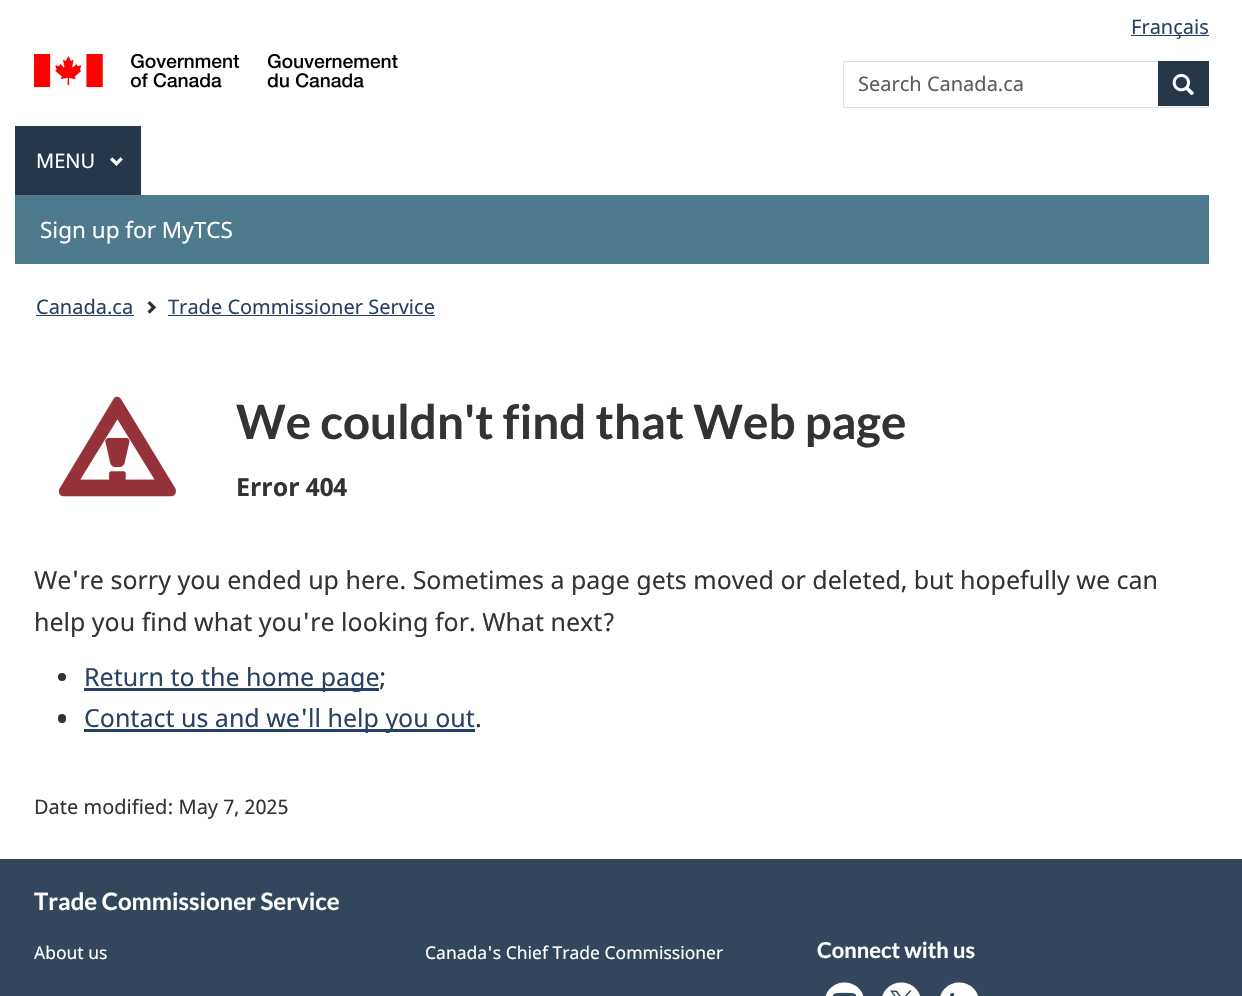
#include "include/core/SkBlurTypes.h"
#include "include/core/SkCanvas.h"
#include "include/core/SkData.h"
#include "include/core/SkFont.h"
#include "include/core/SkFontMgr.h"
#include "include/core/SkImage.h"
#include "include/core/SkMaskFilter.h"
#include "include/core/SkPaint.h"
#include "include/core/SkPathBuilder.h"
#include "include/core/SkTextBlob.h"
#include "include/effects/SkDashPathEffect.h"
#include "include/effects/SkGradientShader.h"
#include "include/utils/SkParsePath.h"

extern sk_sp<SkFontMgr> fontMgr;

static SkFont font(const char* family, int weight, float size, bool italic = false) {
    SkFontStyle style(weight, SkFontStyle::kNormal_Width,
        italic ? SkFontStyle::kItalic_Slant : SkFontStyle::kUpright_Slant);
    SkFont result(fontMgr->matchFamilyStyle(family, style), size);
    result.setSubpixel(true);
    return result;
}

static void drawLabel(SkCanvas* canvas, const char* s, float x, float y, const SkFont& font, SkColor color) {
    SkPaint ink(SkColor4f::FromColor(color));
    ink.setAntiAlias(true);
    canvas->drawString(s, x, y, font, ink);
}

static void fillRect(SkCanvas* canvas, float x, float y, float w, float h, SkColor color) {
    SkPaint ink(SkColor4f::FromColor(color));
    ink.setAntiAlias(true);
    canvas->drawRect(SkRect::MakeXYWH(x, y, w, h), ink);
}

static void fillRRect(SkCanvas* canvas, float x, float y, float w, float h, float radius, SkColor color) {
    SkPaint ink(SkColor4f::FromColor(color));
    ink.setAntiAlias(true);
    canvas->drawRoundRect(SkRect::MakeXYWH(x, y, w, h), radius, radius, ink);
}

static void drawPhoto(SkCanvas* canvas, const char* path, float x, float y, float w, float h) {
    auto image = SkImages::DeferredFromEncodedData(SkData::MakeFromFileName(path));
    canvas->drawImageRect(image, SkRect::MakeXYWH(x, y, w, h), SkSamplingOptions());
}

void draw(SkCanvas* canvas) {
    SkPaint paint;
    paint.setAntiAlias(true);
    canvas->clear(0xFFFFFFFF);
    fillRect(canvas, 1131, 35, 78, 1, 0xFF284162);
    SkFont font1 = font("Noto Sans", 400, 20);
    drawLabel(canvas, "Français", 1131, 34, font1, 0xFF284162);
    drawPhoto(canvas, "assets/img1.png", 34, 54, 364, 34);
    paint.setStroke(true);
    paint.setStrokeWidth(1);
    paint.setColor(0xFFE0E0E0);
    canvas->drawRect(SkRect::MakeXYWH(843.5f, 61.5f, 365, 46), paint);
    drawLabel(canvas, "Search Canada.ca", 858, 91, font1, 0xFF5C5C5C);
    fillRect(canvas, 1158, 61, 51, 45, 0xFF26374A);
    drawPhoto(canvas, "assets/img2.png", 1172, 73, 22, 23);
    fillRect(canvas, 15, 126, 126, 69, 0xFF26374A);
    drawLabel(canvas, "MENU", 36, 168, font1, 0xFFFFFFFF);
    drawPhoto(canvas, "assets/img3.png", 110, 157, 13, 9);
    fillRect(canvas, 15, 195, 1194, 69, 0xFF4E7A8D);
    SkFont font2 = font("Noto Sans", 400, 22.5f);
    drawLabel(canvas, "Sign up for MyTCS", 40, 238, font2, 0xFFFFFFFF);
    drawLabel(canvas, "Canada.ca", 36, 314, font1, 0xFF284162);
    fillRect(canvas, 36, 315, 98, 1, 0xFF284162);
    drawPhoto(canvas, "assets/img4.png", 147, 301, 10, 13);
    drawLabel(canvas, "Trade Commissioner Service", 168, 314, font1, 0xFF284162);
    fillRect(canvas, 168, 315, 267, 1, 0xFF284162);
    drawPhoto(canvas, "assets/img5.png", 58, 396, 118, 101);
    SkFont font3 = font("Lato", 700, 47.5f);
    drawLabel(canvas, "We couldn't find that Web page", 236, 439, font3, 0xFF333333);
    SkFont font4 = font("Noto Sans", 700, 25);
    drawLabel(canvas, "Error 404", 236, 496, font4, 0xFF333333);
    SkFont font5 = font("Noto Sans", 400, 25);
    drawLabel(canvas, "We're sorry you ended up here. Sometimes a page gets moved or deleted, but hopefully we can", 34, 589, font5, 0xFF333333);
    drawLabel(canvas, "help you find what you're looking for. What next?", 34, 631, font5, 0xFF333333);
    paint.setStroke(false);
    paint.setColor(0xFF333333);
    canvas->drawCircle(62, 677, 4, paint);
    fillRect(canvas, 84, 688, 295, 3, 0xFF284162);
    drawLabel(canvas, "Return to the home page", 84, 686, font5, 0xFF284162);
    drawLabel(canvas, ";", 379, 686, font5, 0xFF333333);
    fillRRect(canvas, 58, 714, 8, 9, 4, 0xFF333333);
    fillRect(canvas, 84, 729, 391, 3, 0xFF284162);
    drawLabel(canvas, "Contact us and we'll help you out", 84, 727, font5, 0xFF284162);
    drawLabel(canvas, ".", 475, 727, font5, 0xFF333333);
    drawLabel(canvas, "Date modified: May 7, 2025", 34, 814, font1, 0xFF333333);
    fillRect(canvas, 0, 859, 1242, 137, 0xFF33465C);
    SkFont font6 = font("Lato", 700, 24);
    drawLabel(canvas, "Trade Commissioner Service", 34, 910, font6, 0xFFFFFFFF);
    SkFont font7 = font("Noto Sans", 400, 17.5f);
    drawLabel(canvas, "About us", 34, 959, font7, 0xFFFFFFFF);
    drawLabel(canvas, "Canada's Chief Trade Commissioner", 425, 959, font7, 0xFFFFFFFF);
    SkFont font8 = font("Lato", 700, 22);
    drawLabel(canvas, "Connect with us", 817, 958, font8, 0xFFFFFFFF);
    drawPhoto(canvas, "assets/img6.png", 825, 982, 39, 14);
    drawPhoto(canvas, "assets/img7.png", 882, 982, 38, 14);
    drawPhoto(canvas, "assets/img8.png", 940, 982, 38, 14);
}
